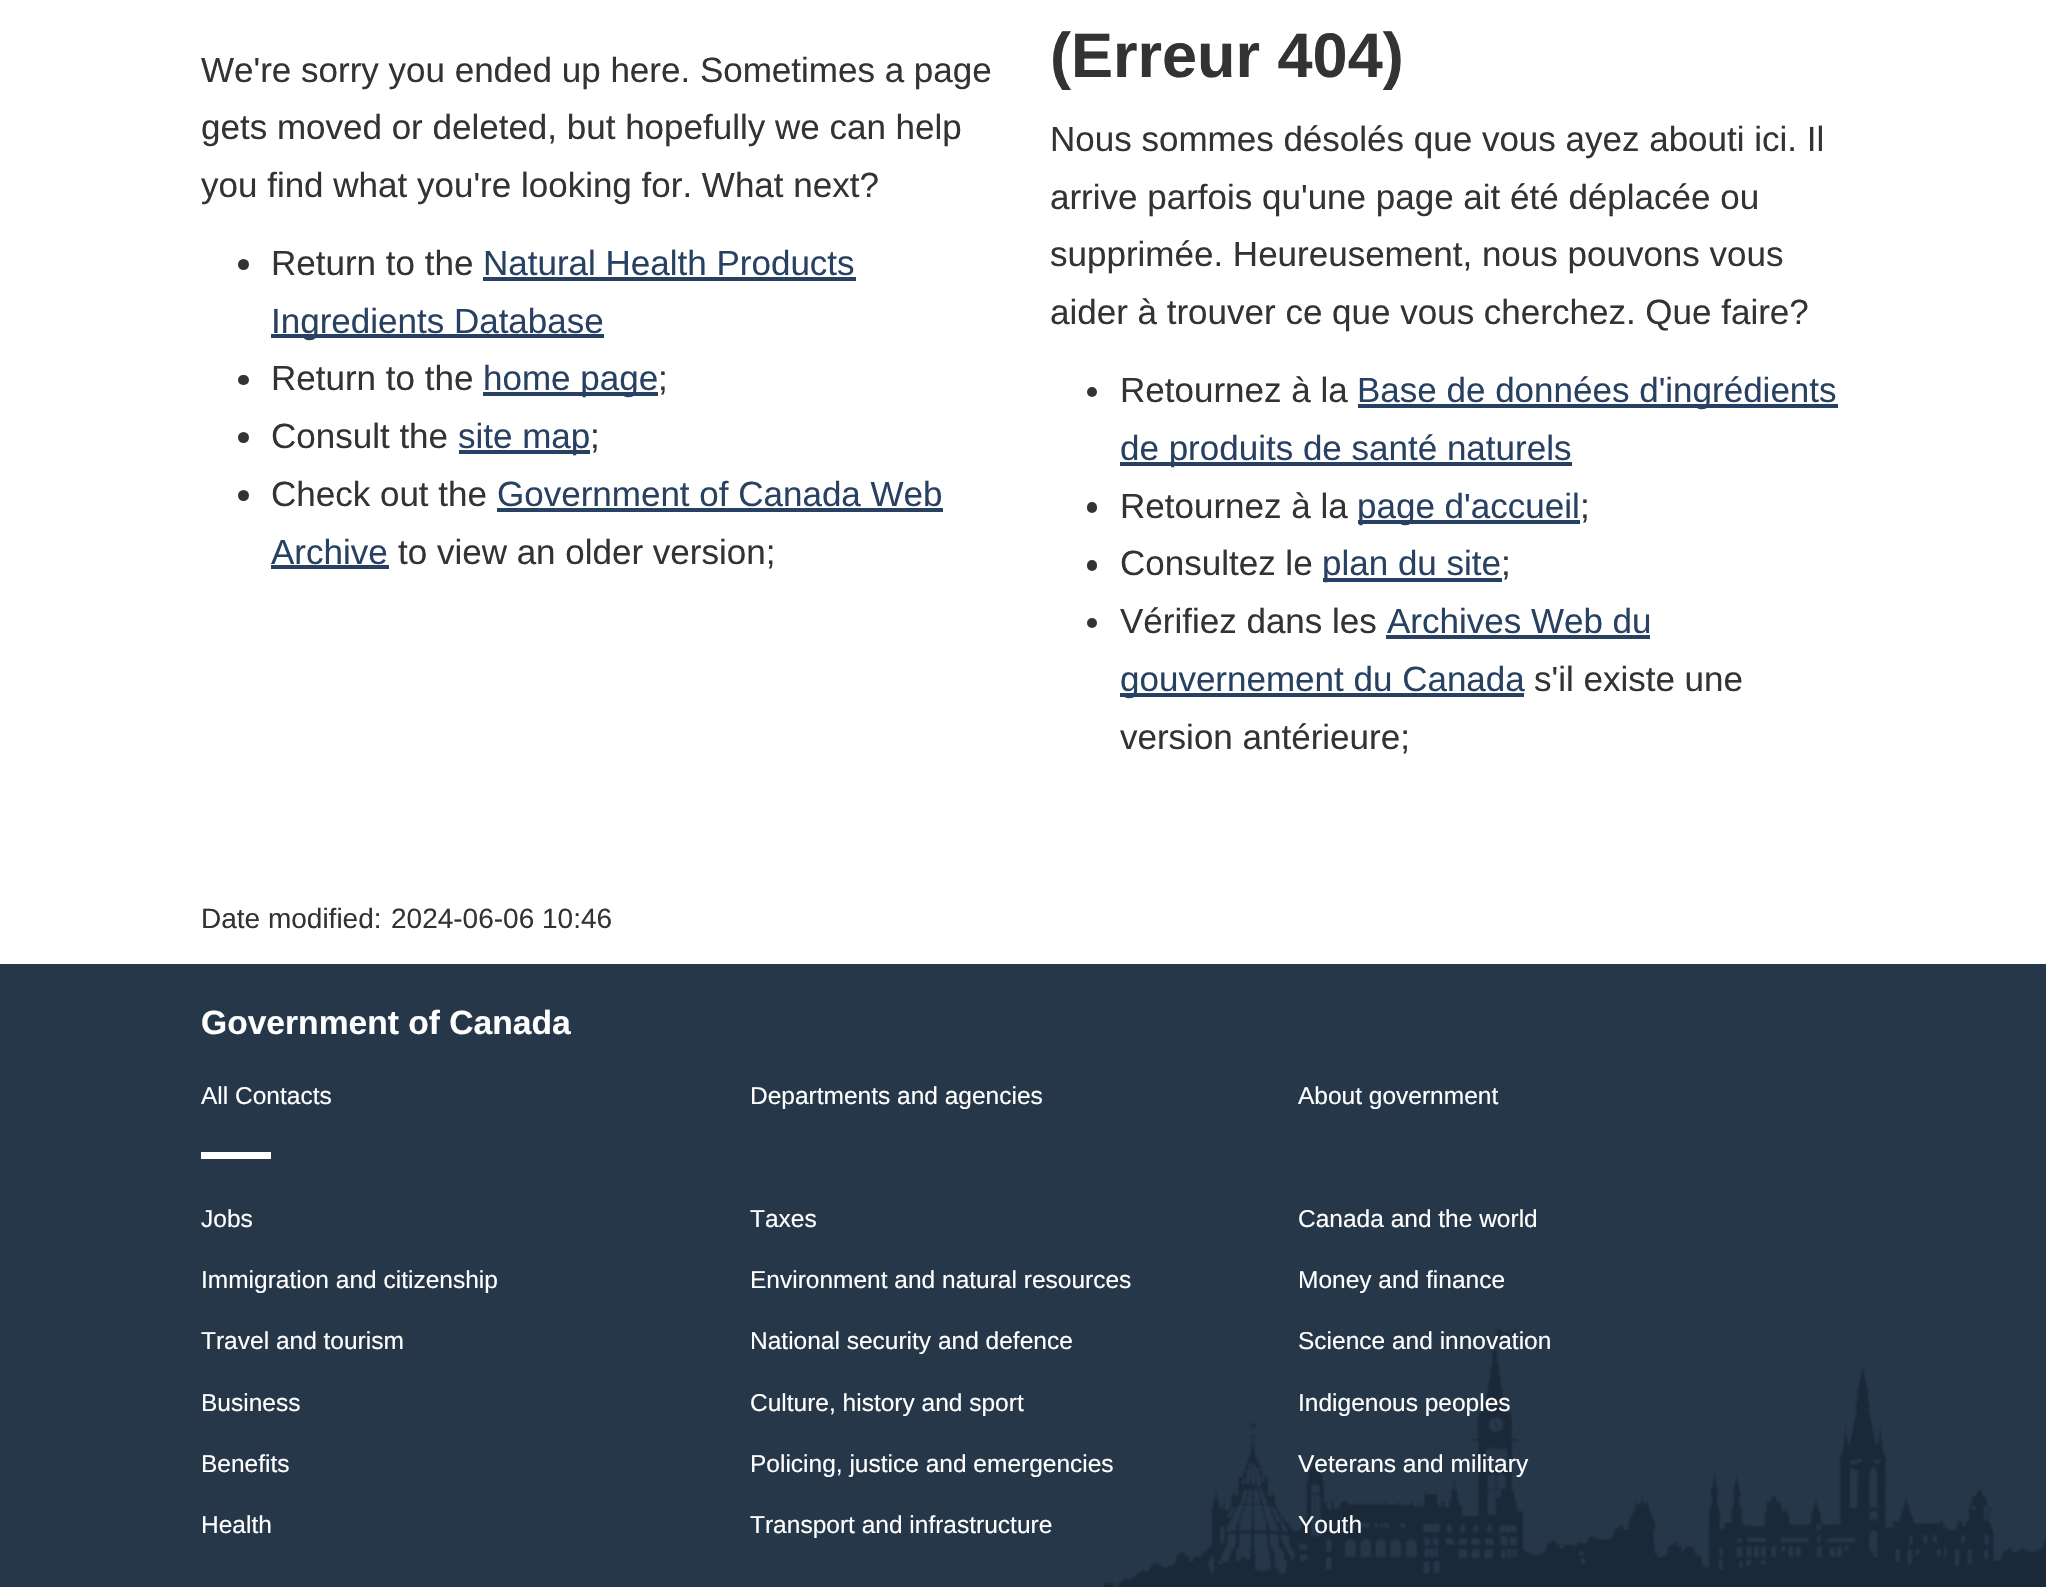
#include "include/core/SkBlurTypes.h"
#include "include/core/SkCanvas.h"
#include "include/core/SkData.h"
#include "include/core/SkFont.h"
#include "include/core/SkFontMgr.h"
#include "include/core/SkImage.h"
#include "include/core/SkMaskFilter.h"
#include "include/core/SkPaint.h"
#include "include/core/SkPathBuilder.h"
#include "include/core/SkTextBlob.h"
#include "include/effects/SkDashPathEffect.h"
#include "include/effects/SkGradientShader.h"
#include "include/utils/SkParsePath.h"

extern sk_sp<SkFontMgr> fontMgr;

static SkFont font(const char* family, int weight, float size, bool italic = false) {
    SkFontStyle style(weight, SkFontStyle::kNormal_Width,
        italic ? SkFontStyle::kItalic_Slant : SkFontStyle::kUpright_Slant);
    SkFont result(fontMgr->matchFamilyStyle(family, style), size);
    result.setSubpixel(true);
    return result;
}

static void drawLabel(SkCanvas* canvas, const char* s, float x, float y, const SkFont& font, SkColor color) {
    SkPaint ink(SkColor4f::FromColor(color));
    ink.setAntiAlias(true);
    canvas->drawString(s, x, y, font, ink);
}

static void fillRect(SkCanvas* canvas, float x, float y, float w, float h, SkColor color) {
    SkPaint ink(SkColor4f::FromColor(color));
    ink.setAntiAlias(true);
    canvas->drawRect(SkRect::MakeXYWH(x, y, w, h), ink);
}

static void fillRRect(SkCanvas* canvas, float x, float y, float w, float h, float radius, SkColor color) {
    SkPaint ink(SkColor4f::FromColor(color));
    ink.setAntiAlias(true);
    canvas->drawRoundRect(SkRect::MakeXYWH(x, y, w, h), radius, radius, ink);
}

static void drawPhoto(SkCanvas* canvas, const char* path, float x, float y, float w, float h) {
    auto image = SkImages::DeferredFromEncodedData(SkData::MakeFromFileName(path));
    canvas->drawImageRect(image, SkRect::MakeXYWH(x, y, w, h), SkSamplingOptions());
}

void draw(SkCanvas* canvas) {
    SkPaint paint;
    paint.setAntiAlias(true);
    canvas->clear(0xFFFFFFFF);
    SkFont font1 = font("Liberation Sans", 400, 35);
    drawLabel(canvas, "We're sorry you ended up here. Sometimes a page", 201, 82, font1, 0xFF333333);
    drawLabel(canvas, "gets moved or deleted, but hopefully we can help", 201, 139, font1, 0xFF333333);
    drawLabel(canvas, "you find what you're looking for. What next?", 201, 197, font1, 0xFF333333);
    paint.setColor(0xFF333333);
    canvas->drawCircle(243.5f, 264.5f, 5.5f, paint);
    drawLabel(canvas, "Return to the", 271, 275, font1, 0xFF333333);
    drawLabel(canvas, "Natural Health Products", 483, 275, font1, 0xFF284162);
    fillRect(canvas, 483, 277, 373, 4, 0xFF284162);
    fillRect(canvas, 271, 334, 333, 4, 0xFF284162);
    drawLabel(canvas, "Ingredients Database", 271, 333, font1, 0xFF284162);
    fillRRect(canvas, 238, 375, 11, 10, 5, 0xFF333333);
    drawLabel(canvas, "Return to the", 271, 390, font1, 0xFF333333);
    fillRect(canvas, 483, 392, 175, 4, 0xFF284162);
    drawLabel(canvas, "home page", 483, 390, font1, 0xFF284162);
    drawLabel(canvas, ";", 658, 390, font1, 0xFF333333);
    canvas->drawCircle(243.5f, 437.5f, 5.5f, paint);
    drawLabel(canvas, "Consult the", 271, 448, font1, 0xFF333333);
    fillRect(canvas, 459, 450, 131, 4, 0xFF284162);
    drawLabel(canvas, "site map", 458, 448, font1, 0xFF284162);
    drawLabel(canvas, ";", 590, 448, font1, 0xFF333333);
    canvas->drawCircle(243.5f, 495.5f, 5.5f, paint);
    drawLabel(canvas, "Check out the", 271, 506, font1, 0xFF333333);
    drawLabel(canvas, "Government of Canada Web", 497, 506, font1, 0xFF284162);
    fillRect(canvas, 497, 508, 446, 4, 0xFF284162);
    drawLabel(canvas, "Archive", 271, 564, font1, 0xFF284162);
    fillRect(canvas, 271, 565, 118, 4, 0xFF284162);
    drawLabel(canvas, "to view an older version;", 398, 564, font1, 0xFF333333);
    SkFont font2 = font("Liberation Sans", 700, 63);
    drawLabel(canvas, "(Erreur 404)", 1050, 77, font2, 0xFF333333);
    drawLabel(canvas, "Nous sommes désolés que vous ayez abouti ici. Il", 1050, 151, font1, 0xFF333333);
    drawLabel(canvas, "arrive parfois qu'une page ait été déplacée ou", 1050, 209, font1, 0xFF333333);
    drawLabel(canvas, "supprimée. Heureusement, nous pouvons vous", 1050, 266, font1, 0xFF333333);
    drawLabel(canvas, "aider à trouver ce que vous cherchez. Que faire?", 1050, 324, font1, 0xFF333333);
    canvas->drawCircle(1092, 392, 5, paint);
    drawLabel(canvas, "Retournez à la", 1120, 402, font1, 0xFF333333);
    fillRect(canvas, 1358, 404, 480, 4, 0xFF284162);
    drawLabel(canvas, "Base de données d'ingrédients", 1357, 402, font1, 0xFF284162);
    fillRect(canvas, 1120, 462, 452, 4, 0xFF284162);
    drawLabel(canvas, "de produits de santé naturels", 1120, 460, font1, 0xFF284162);
    fillRRect(canvas, 1087, 502, 10, 11, 5, 0xFF333333);
    drawLabel(canvas, "Retournez à la", 1120, 518, font1, 0xFF333333);
    fillRect(canvas, 1358, 520, 222, 4, 0xFF284162);
    drawLabel(canvas, "page d'accueil", 1357, 518, font1, 0xFF284162);
    drawLabel(canvas, ";", 1580, 518, font1, 0xFF333333);
    fillRRect(canvas, 1087, 560, 10, 11, 5, 0xFF333333);
    drawLabel(canvas, "Consultez le", 1120, 575, font1, 0xFF333333);
    fillRect(canvas, 1323, 578, 179, 4, 0xFF284162);
    drawLabel(canvas, "plan du site", 1322, 575, font1, 0xFF284162);
    drawLabel(canvas, ";", 1501, 575, font1, 0xFF333333);
    canvas->drawCircle(1092, 623, 5, paint);
    drawLabel(canvas, "Vérifiez dans les", 1120, 633, font1, 0xFF333333);
    drawLabel(canvas, "Archives Web du", 1387, 633, font1, 0xFF284162);
    fillRect(canvas, 1386, 635, 264, 4, 0xFF284162);
    fillRect(canvas, 1120, 693, 404, 4, 0xFF284162);
    drawLabel(canvas, "gouvernement du Canada", 1120, 691, font1, 0xFF284162);
    drawLabel(canvas, "s'il existe une", 1534, 691, font1, 0xFF333333);
    drawLabel(canvas, "version antérieure;", 1120, 749, font1, 0xFF333333);
    SkFont font3 = font("Liberation Sans", 400, 28);
    drawLabel(canvas, "Date modified:", 201, 928, font3, 0xFF333333);
    drawLabel(canvas, "2024-06-06 10:46", 391, 928, font3, 0xFF333333);
    fillRect(canvas, 0, 964, 2046, 623, 0xFF26374A);
    drawPhoto(canvas, "assets/img1.png", 1103, 1328, 943, 259);
    SkFont font4 = font("Liberation Sans", 700, 33.6f);
    drawLabel(canvas, "Government of Canada", 201, 1034, font4, 0xFFFFFFFF);
    SkFont font5 = font("Liberation Sans", 400, 24.5f);
    drawLabel(canvas, "All Contacts", 201, 1104, font5, 0xFFFFFFFF);
    drawLabel(canvas, "Departments and agencies", 750, 1104, font5, 0xFFFFFFFF);
    drawLabel(canvas, "About government", 1298, 1104, font5, 0xFFFFFFFF);
    fillRect(canvas, 201, 1152, 70, 7, 0xFFFFFFFF);
    drawLabel(canvas, "Jobs", 201, 1227, font5, 0xFFFFFFFF);
    drawLabel(canvas, "Taxes", 750, 1227, font5, 0xFFFFFFFF);
    drawLabel(canvas, "Canada and the world", 1298, 1227, font5, 0xFFFFFFFF);
    drawLabel(canvas, "Immigration and citizenship", 201, 1288, font5, 0xFFFFFFFF);
    drawLabel(canvas, "Environment and natural resources", 750, 1288, font5, 0xFFFFFFFF);
    drawLabel(canvas, "Money and finance", 1298, 1288, font5, 0xFFFFFFFF);
    drawLabel(canvas, "Travel and tourism", 201, 1349, font5, 0xFFFFFFFF);
    drawLabel(canvas, "National security and defence", 750, 1349, font5, 0xFFFFFFFF);
    drawLabel(canvas, "Science and innovation", 1298, 1349, font5, 0xFFFFFFFF);
    drawLabel(canvas, "Business", 201, 1411, font5, 0xFFFFFFFF);
    drawLabel(canvas, "Culture, history and sport", 750, 1411, font5, 0xFFFFFFFF);
    drawLabel(canvas, "Indigenous peoples", 1298, 1411, font5, 0xFFFFFFFF);
    drawLabel(canvas, "Benefits", 201, 1472, font5, 0xFFFFFFFF);
    drawLabel(canvas, "Policing, justice and emergencies", 750, 1472, font5, 0xFFFFFFFF);
    drawLabel(canvas, "Veterans and military", 1298, 1472, font5, 0xFFFFFFFF);
    drawLabel(canvas, "Health", 201, 1533, font5, 0xFFFFFFFF);
    drawLabel(canvas, "Transport and infrastructure", 750, 1533, font5, 0xFFFFFFFF);
    drawLabel(canvas, "Youth", 1298, 1533, font5, 0xFFFFFFFF);
}
